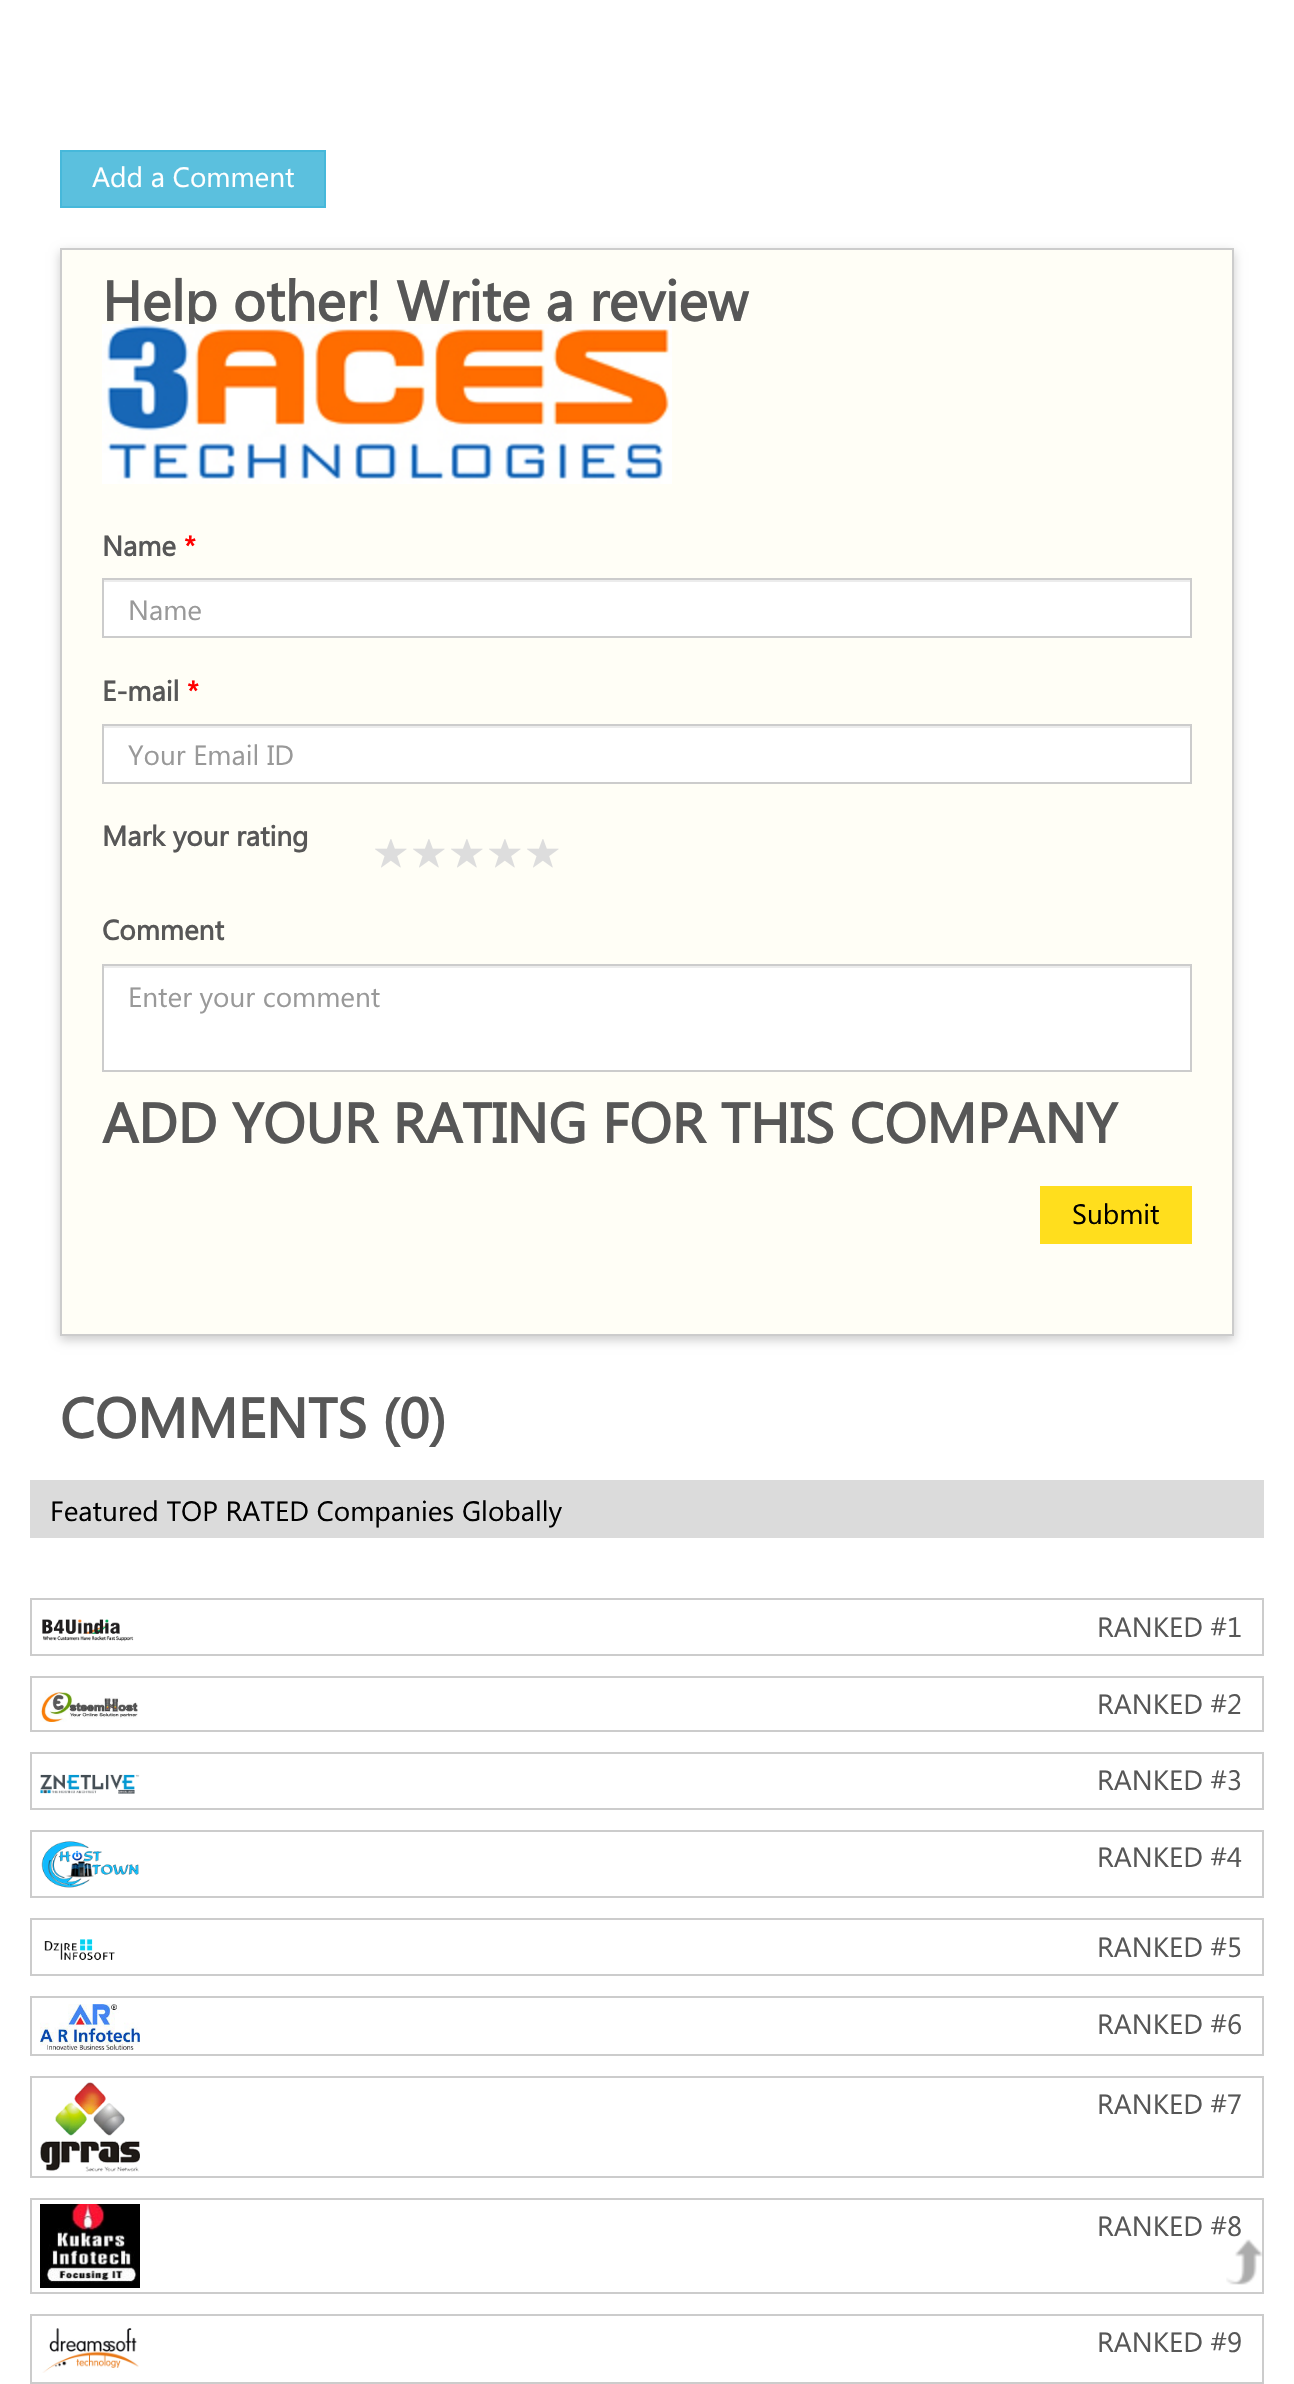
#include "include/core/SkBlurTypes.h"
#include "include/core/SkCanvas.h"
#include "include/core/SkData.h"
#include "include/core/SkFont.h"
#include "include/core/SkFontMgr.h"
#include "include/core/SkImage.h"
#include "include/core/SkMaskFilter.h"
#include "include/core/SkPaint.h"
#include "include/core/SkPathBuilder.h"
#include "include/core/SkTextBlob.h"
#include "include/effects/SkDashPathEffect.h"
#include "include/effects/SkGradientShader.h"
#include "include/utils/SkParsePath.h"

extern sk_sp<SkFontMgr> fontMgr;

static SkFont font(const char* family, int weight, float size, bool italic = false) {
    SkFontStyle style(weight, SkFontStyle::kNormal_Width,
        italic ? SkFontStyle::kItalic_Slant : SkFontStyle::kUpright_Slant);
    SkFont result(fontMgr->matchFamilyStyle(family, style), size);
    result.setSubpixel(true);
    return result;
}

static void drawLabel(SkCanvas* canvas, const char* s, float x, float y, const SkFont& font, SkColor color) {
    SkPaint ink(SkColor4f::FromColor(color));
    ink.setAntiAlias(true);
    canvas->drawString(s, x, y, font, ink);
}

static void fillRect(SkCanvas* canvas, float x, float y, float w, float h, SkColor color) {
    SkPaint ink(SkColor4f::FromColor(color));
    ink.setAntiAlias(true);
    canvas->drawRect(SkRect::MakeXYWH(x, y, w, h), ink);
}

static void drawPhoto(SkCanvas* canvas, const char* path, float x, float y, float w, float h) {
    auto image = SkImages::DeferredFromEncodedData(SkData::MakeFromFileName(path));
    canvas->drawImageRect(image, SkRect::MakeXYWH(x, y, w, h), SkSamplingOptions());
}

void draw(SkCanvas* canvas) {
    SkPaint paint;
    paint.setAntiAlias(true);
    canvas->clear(0xFFFFFFFF);
    paint.setColor(0xFF5BC0DE);
    canvas->drawRect(SkRect::MakeXYWH(61, 151, 264, 56), paint);
    paint.setStroke(true);
    paint.setStrokeWidth(2);
    paint.setColor(0xFF46B8DA);
    canvas->drawRect(SkRect::MakeXYWH(61, 151, 264, 56), paint);
    SkFont font1 = font("Segoe UI", 400, 28);
    drawLabel(canvas, "Add a Comment", 92, 187, font1, 0xFFFFFFFF);
    paint.setStroke(false);
    paint.setColor(0xFFCCCCCC);
    paint.setMaskFilter(SkMaskFilter::MakeBlur(kNormal_SkBlurStyle, 5));
    canvas->drawRect(SkRect::MakeXYWH(60, 252, 1174, 1088), paint);
    paint.setMaskFilter(nullptr);
    paint.setColor(0xFFFFFEF6);
    canvas->drawRect(SkRect::MakeXYWH(61, 249, 1172, 1086), paint);
    paint.setStroke(true);
    paint.setColor(0xFFCCCCCC);
    canvas->drawRect(SkRect::MakeXYWH(61, 249, 1172, 1086), paint);
    SkFont font2 = font("Segoe UI", 700, 56);
    drawLabel(canvas, "Help other! Write a review", 102, 321, font2, 0xFF575757);
    drawPhoto(canvas, "assets/img1.png", 102, 324, 570, 160);
    SkFont font3 = font("Segoe UI", 700, 28);
    drawLabel(canvas, "Name", 102, 556, font3, 0xFF575757);
    drawLabel(canvas, "*", 184, 556, font3, 0xFFFF0000);
    fillRect(canvas, 104, 582, 1086, 54, 0xFFFFFFFF);
    fillRect(canvas, 104, 580, 1086, 2, 0xFFECECEC);
    canvas->drawRect(SkRect::MakeXYWH(103, 579, 1088, 58), paint);
    drawLabel(canvas, "Name", 128, 620, font1, 0xFF999999);
    drawLabel(canvas, "E-mail", 102, 701, font3, 0xFF575757);
    drawLabel(canvas, "*", 187, 701, font3, 0xFFFF0000);
    fillRect(canvas, 104, 728, 1086, 54, 0xFFFFFFFF);
    fillRect(canvas, 104, 726, 1086, 2, 0xFFECECEC);
    canvas->drawRect(SkRect::MakeXYWH(103, 725, 1088, 58), paint);
    drawLabel(canvas, "Your Email ID", 128, 765, font1, 0xFF999999);
    drawLabel(canvas, "Mark your rating", 102, 846, font3, 0xFF575757);
    drawPhoto(canvas, "assets/img2.png", 375, 839, 32, 29);
    drawPhoto(canvas, "assets/img2.png", 413, 839, 32, 29);
    drawPhoto(canvas, "assets/img2.png", 451, 839, 32, 29);
    drawPhoto(canvas, "assets/img2.png", 489, 839, 32, 29);
    drawPhoto(canvas, "assets/img2.png", 527, 839, 32, 29);
    drawLabel(canvas, "Comment", 102, 940, font3, 0xFF575757);
    fillRect(canvas, 104, 968, 1086, 102, 0xFFFFFFFF);
    fillRect(canvas, 104, 966, 1086, 2, 0xFFECECEC);
    canvas->drawRect(SkRect::MakeXYWH(103, 965, 1088, 106), paint);
    drawLabel(canvas, "Enter your comment", 128, 1007, font1, 0xFF999999);
    drawLabel(canvas, "ADD YOUR RATING FOR THIS COMPANY", 102, 1143, font2, 0xFF575757);
    fillRect(canvas, 1040, 1186, 152, 58, 0xFFFFDE1D);
    drawLabel(canvas, "Submit", 1072, 1224, font1, 0xFF000000);
    drawLabel(canvas, "COMMENTS (0)", 60, 1438, font2, 0xFF575757);
    fillRect(canvas, 30, 1480, 1234, 58, 0xFFDBDBDB);
    drawLabel(canvas, "Featured TOP RATED Companies Globally", 50, 1521, font1, 0xFF000000);
    canvas->drawRect(SkRect::MakeXYWH(31, 1599, 1232, 56), paint);
    drawPhoto(canvas, "assets/img3.png", 42, 1619, 92, 23);
    drawLabel(canvas, "RANKED #1", 1097, 1637, font1, 0xFF575757);
    canvas->drawRect(SkRect::MakeXYWH(31, 1677, 1232, 54), paint);
    drawPhoto(canvas, "assets/img4.png", 40, 1692, 98, 30);
    drawLabel(canvas, "RANKED #2", 1097, 1714, font1, 0xFF575757);
    canvas->drawRect(SkRect::MakeXYWH(31, 1753, 1232, 56), paint);
    drawPhoto(canvas, "assets/img5.png", 40, 1774, 100, 20);
    drawLabel(canvas, "RANKED #3", 1097, 1790, font1, 0xFF575757);
    canvas->drawRect(SkRect::MakeXYWH(31, 1831, 1232, 66), paint);
    drawPhoto(canvas, "assets/img6.png", 41, 1841, 98, 47);
    drawLabel(canvas, "RANKED #4", 1097, 1867, font1, 0xFF575757);
    canvas->drawRect(SkRect::MakeXYWH(31, 1919, 1232, 56), paint);
    drawPhoto(canvas, "assets/img7.png", 44, 1939, 71, 22);
    drawLabel(canvas, "RANKED #5", 1097, 1957, font1, 0xFF575757);
    canvas->drawRect(SkRect::MakeXYWH(31, 1997, 1232, 58), paint);
    drawPhoto(canvas, "assets/img8.png", 40, 2004, 100, 46);
    drawLabel(canvas, "RANKED #6", 1097, 2034, font1, 0xFF575757);
    canvas->drawRect(SkRect::MakeXYWH(31, 2077, 1232, 100), paint);
    drawPhoto(canvas, "assets/img9.png", 40, 2082, 100, 90);
    drawLabel(canvas, "RANKED #7", 1097, 2114, font1, 0xFF575757);
    canvas->drawRect(SkRect::MakeXYWH(31, 2199, 1232, 94), paint);
    drawPhoto(canvas, "assets/img10.png", 40, 2204, 100, 84);
    drawLabel(canvas, "RANKED #8", 1097, 2236, font1, 0xFF575757);
    canvas->drawRect(SkRect::MakeXYWH(31, 2315, 1232, 68), paint);
    drawPhoto(canvas, "assets/img11.png", 42, 2328, 97, 45);
    drawLabel(canvas, "RANKED #9", 1097, 2352, font1, 0xFF575757);
    drawPhoto(canvas, "assets/img12.png", 1226, 2239, 37, 46);
}
